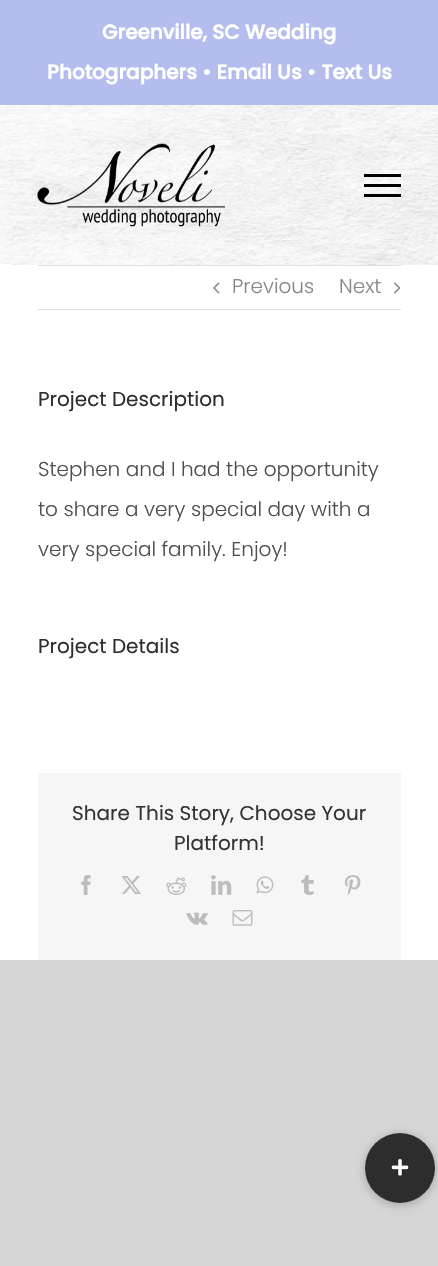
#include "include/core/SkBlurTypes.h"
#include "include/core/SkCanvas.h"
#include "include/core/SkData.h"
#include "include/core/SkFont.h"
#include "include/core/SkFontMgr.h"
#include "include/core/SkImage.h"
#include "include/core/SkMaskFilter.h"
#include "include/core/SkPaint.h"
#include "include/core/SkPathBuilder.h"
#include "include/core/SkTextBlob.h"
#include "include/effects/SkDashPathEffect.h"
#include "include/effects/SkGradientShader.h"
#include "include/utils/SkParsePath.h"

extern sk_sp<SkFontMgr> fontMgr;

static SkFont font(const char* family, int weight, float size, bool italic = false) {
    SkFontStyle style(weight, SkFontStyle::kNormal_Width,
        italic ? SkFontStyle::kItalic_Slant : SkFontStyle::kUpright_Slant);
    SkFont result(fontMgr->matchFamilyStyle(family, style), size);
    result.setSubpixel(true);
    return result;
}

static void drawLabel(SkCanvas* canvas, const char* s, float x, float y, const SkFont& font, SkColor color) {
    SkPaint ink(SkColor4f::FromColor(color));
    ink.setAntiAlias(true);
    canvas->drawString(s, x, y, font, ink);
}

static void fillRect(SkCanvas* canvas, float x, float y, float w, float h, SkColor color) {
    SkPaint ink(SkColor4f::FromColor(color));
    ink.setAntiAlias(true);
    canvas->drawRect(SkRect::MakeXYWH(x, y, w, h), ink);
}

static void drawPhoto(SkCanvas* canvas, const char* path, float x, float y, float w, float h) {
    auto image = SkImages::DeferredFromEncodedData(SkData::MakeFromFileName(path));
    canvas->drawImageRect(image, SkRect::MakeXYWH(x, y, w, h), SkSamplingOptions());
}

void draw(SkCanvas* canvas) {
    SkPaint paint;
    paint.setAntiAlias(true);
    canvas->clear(0xFFD7D6D6);
    fillRect(canvas, 0, 0, 438, 105, 0xFFB4BDEE);
    SkFont font1 = font("Poppins", 700, 20);
    drawLabel(canvas, "Greenville, SC Wedding", 102, 39, font1, 0xFFFFFFFF);
    drawLabel(canvas, "Photographers • Email Us • Text Us", 47, 79, font1, 0xFFFFFFFF);
    fillRect(canvas, 0, 265, 438, 695, 0xFFFFFFFF);
    drawPhoto(canvas, "assets/img1.png", 0, 105, 438, 160);
    drawPhoto(canvas, "assets/img2.png", 37, 143, 188, 84);
    fillRect(canvas, 364, 174, 37, 3, 0xFF000000);
    fillRect(canvas, 364, 184, 37, 3, 0xFF000000);
    fillRect(canvas, 364, 194, 37, 3, 0xFF000000);
    fillRect(canvas, 38, 265, 363, 1, 0xFFE0DEDE);
    fillRect(canvas, 38, 309, 363, 1, 0xFFE0DEDE);
    drawPhoto(canvas, "assets/img3.png", 213, 282, 7, 12);
    SkFont font2 = font("Poppins", 300, 20);
    drawLabel(canvas, "Previous", 232, 293, font2, 0xFF878787);
    drawLabel(canvas, "Next", 339, 293, font2, 0xFF878787);
    drawPhoto(canvas, "assets/img4.png", 394, 282, 7, 12);
    SkFont font3 = font("Poppins", 400, 20);
    drawLabel(canvas, "Project Description", 38, 406, font3, 0xFF2D2D2D);
    drawLabel(canvas, "Stephen and I had the opportunity", 38, 476, font2, 0xFF4D4D4D);
    drawLabel(canvas, "to share a very special day with a", 38, 516, font2, 0xFF4D4D4D);
    drawLabel(canvas, "very special family. Enjoy!", 38, 556, font2, 0xFF4D4D4D);
    drawLabel(canvas, "Project Details", 38, 653, font3, 0xFF2D2D2D);
    fillRect(canvas, 38, 773, 363, 187, 0xFFF6F6F6);
    drawLabel(canvas, "Share This Story, Choose Your", 72, 820, font3, 0xFF333333);
    drawLabel(canvas, "Platform!", 174, 850, font3, 0xFF333333);
    drawPhoto(canvas, "assets/img5.png", 81, 875, 10, 20);
    drawPhoto(canvas, "assets/img6.png", 121, 876, 20, 18);
    drawPhoto(canvas, "assets/img7.png", 166, 877, 21, 18);
    drawPhoto(canvas, "assets/img8.png", 211, 875, 21, 20);
    drawPhoto(canvas, "assets/img9.png", 256, 876, 18, 18);
    drawPhoto(canvas, "assets/img10.png", 301, 875, 13, 20);
    drawPhoto(canvas, "assets/img11.png", 344, 875, 17, 20);
    drawPhoto(canvas, "assets/img12.png", 186, 912, 22, 13);
    drawPhoto(canvas, "assets/img13.png", 232, 910, 21, 16);
    paint.setColor(0x33000000);
    paint.setMaskFilter(SkMaskFilter::MakeBlur(kNormal_SkBlurStyle, 4));
    canvas->drawRoundRect(SkRect::MakeXYWH(364, 1134, 72, 72), 36, 36, paint);
    paint.setMaskFilter(nullptr);
    paint.setColor(0xFF2D2D2D);
    canvas->drawCircle(400, 1168, 35, paint);
    drawPhoto(canvas, "assets/img14.png", 391, 1159, 18, 17);
}
